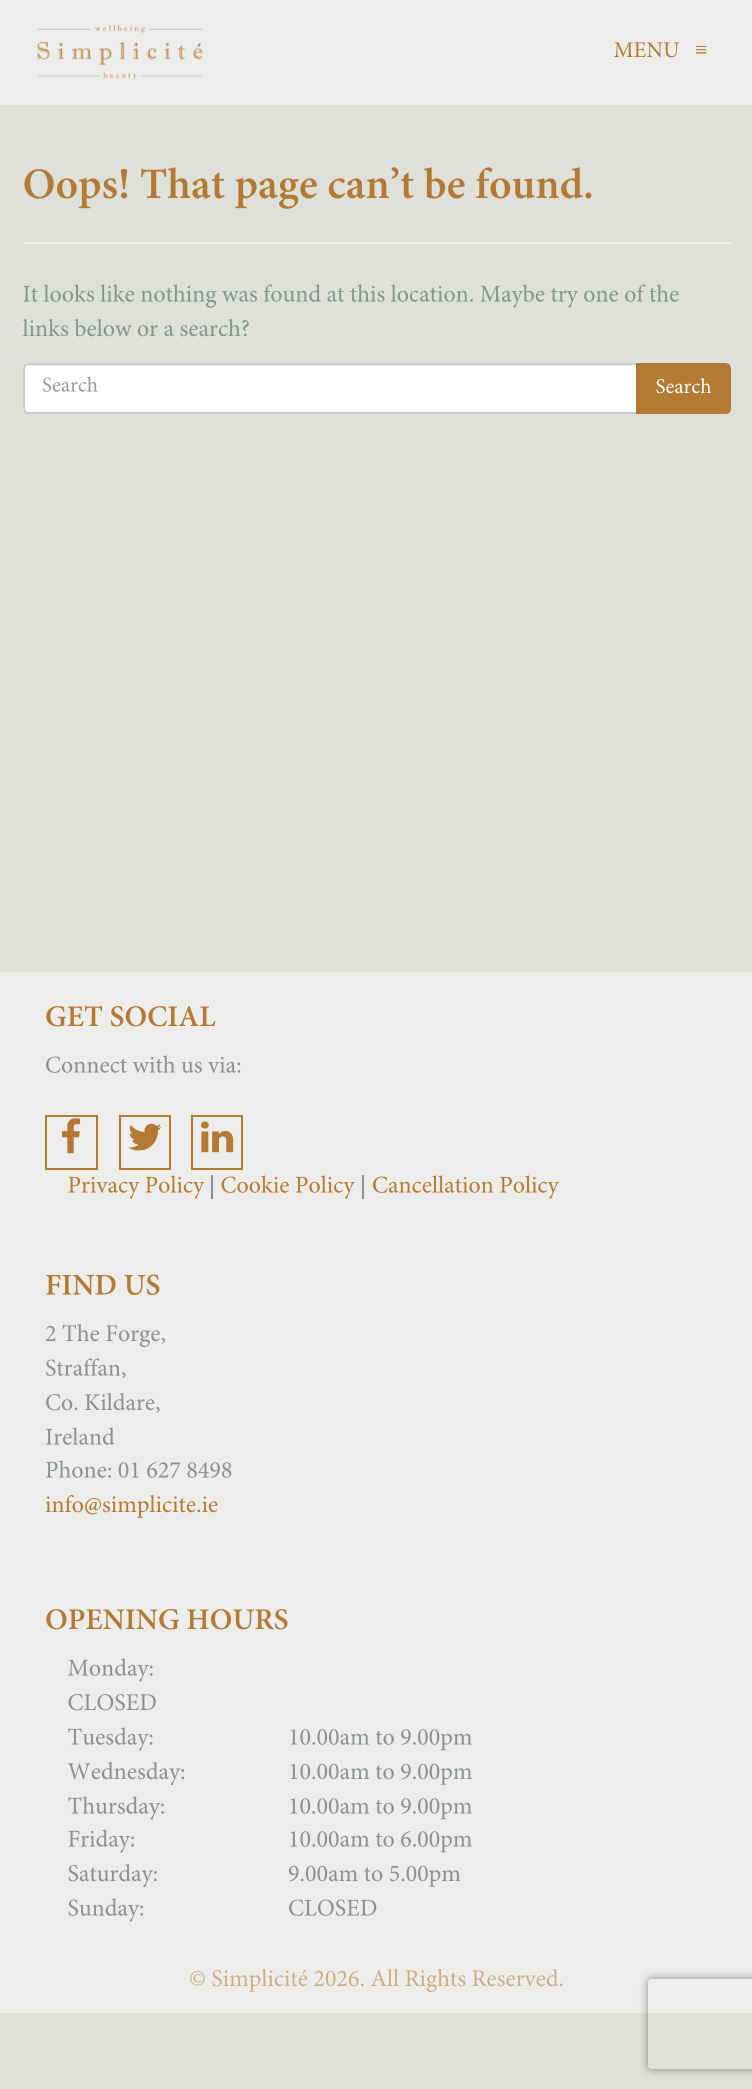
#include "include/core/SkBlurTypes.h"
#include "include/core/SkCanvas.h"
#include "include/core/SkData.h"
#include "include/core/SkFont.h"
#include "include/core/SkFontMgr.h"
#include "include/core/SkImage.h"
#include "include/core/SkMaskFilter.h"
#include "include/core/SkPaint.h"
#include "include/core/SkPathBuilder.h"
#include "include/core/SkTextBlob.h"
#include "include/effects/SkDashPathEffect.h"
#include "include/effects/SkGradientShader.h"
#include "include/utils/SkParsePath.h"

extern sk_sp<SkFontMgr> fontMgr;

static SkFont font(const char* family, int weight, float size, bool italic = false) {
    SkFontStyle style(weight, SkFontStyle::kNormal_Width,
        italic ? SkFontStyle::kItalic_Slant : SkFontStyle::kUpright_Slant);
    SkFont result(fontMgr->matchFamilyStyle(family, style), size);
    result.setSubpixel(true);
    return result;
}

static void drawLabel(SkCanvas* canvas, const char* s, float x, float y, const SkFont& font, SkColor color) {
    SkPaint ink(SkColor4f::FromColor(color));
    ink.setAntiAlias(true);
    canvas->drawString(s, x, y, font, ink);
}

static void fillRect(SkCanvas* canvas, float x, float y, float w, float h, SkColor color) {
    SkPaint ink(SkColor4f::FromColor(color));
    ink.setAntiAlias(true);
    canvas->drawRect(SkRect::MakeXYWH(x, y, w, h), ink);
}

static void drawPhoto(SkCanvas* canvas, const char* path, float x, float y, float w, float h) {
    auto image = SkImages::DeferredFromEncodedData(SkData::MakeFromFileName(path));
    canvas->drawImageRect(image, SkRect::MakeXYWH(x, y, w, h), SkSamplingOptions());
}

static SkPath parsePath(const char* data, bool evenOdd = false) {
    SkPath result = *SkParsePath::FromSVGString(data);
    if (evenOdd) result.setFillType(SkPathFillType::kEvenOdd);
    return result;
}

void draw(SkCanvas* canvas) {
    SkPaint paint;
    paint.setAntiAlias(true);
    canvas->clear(0xFFDEE0DA);
    fillRect(canvas, 0, 0, 752, 105, 0xFFEDEEEC);
    drawPhoto(canvas, "assets/img1.png", 37, 25, 166, 55);
    drawPhoto(canvas, "assets/img2.png", 614, 42, 66, 16);
    SkFont font1 = font("Liberation Serif", 400, 22);
    drawLabel(canvas, "≡", 695, 57, font1, 0xFFB47A33);
    fillRect(canvas, 23, 242, 708, 2, 0xFFEEEEEE);
    drawPhoto(canvas, "assets/img3.png", 24, 167, 568, 42);
    drawPhoto(canvas, "assets/img4.png", 23, 284, 656, 24);
    drawPhoto(canvas, "assets/img5.png", 22, 319, 227, 18);
    paint.setColor(0xFFFFFFFF);
    canvas->drawPath(parsePath("M29 363H638V414H29C25.5 414 23 411.5 23 408V369C23 365.5 25.5 363 29 363Z"), paint);
    paint.setColor(0xFFECECEC);
    canvas->drawPath(parsePath("M28 366H636V365H29C26 365 24 367 24 370C24 368 26 366 28 366Z"), paint);
    paint.setStroke(true);
    paint.setStrokeWidth(2);
    paint.setColor(0xFFCCCCCC);
    canvas->drawPath(parsePath("M29 364H637V413H29C26 413 24 411 24 408V369C24 366 26 364 29 364Z"), paint);
    drawPhoto(canvas, "assets/img6.png", 43, 376, 55, 16);
    paint.setStroke(false);
    paint.setColor(0xFFB47A33);
    canvas->drawPath(parsePath("M637 364H725C728 364 730 366 730 369V408C730 411 728 413 725 413H637Z"), paint);
    paint.setStroke(true);
    canvas->drawPath(parsePath("M637 364H725C728 364 730 366 730 369V408C730 411 728 413 725 413H637Z"), paint);
    drawPhoto(canvas, "assets/img7.png", 656, 378, 56, 16);
    fillRect(canvas, 0, 972, 752, 1041, 0xFFEDEEEC);
    drawPhoto(canvas, "assets/img8.png", 46, 1005, 170, 22);
    drawPhoto(canvas, "assets/img9.png", 46, 1055, 195, 18);
    canvas->drawRect(SkRect::MakeXYWH(46, 1116, 51, 53), paint);
    drawPhoto(canvas, "assets/img10.png", 62, 1118, 19, 36);
    canvas->drawRect(SkRect::MakeXYWH(120, 1116, 50, 53), paint);
    drawPhoto(canvas, "assets/img11.png", 128, 1123, 34, 28);
    canvas->drawRect(SkRect::MakeXYWH(192, 1116, 50, 53), paint);
    drawPhoto(canvas, "assets/img12.png", 201, 1121, 33, 32);
    drawPhoto(canvas, "assets/img13.png", 68, 1175, 137, 24);
    fillRect(canvas, 211, 1175, 2, 24, 0xFF8A9191);
    drawPhoto(canvas, "assets/img14.png", 221, 1175, 134, 24);
    fillRect(canvas, 362, 1175, 2, 24, 0xFF8A9191);
    drawPhoto(canvas, "assets/img15.png", 373, 1175, 187, 24);
    drawPhoto(canvas, "assets/img16.png", 46, 1274, 114, 21);
    drawPhoto(canvas, "assets/img17.png", 45, 1324, 120, 24);
    drawPhoto(canvas, "assets/img18.png", 46, 1358, 80, 21);
    drawPhoto(canvas, "assets/img19.png", 46, 1393, 114, 20);
    drawPhoto(canvas, "assets/img20.png", 45, 1427, 70, 18);
    drawPhoto(canvas, "assets/img21.png", 46, 1460, 186, 18);
    drawPhoto(canvas, "assets/img22.png", 45, 1494, 173, 24);
    drawPhoto(canvas, "assets/img23.png", 46, 1609, 242, 21);
    drawPhoto(canvas, "assets/img24.png", 68, 1658, 85, 24);
    drawPhoto(canvas, "assets/img25.png", 68, 1694, 88, 17);
    drawPhoto(canvas, "assets/img26.png", 68, 1727, 85, 24);
    drawPhoto(canvas, "assets/img27.png", 290, 1729, 182, 22);
    drawPhoto(canvas, "assets/img28.png", 67, 1762, 118, 24);
    drawPhoto(canvas, "assets/img29.png", 290, 1763, 182, 22);
    drawPhoto(canvas, "assets/img30.png", 68, 1796, 96, 24);
    drawPhoto(canvas, "assets/img27.png", 290, 1798, 182, 22);
    drawPhoto(canvas, "assets/img31.png", 68, 1829, 66, 24);
    drawPhoto(canvas, "assets/img32.png", 290, 1831, 182, 22);
    drawPhoto(canvas, "assets/img33.png", 68, 1864, 89, 24);
    drawPhoto(canvas, "assets/img34.png", 288, 1865, 173, 22);
    drawPhoto(canvas, "assets/img35.png", 68, 1898, 75, 24);
    drawPhoto(canvas, "assets/img36.png", 289, 1899, 88, 17);
    drawPhoto(canvas, "assets/img37.png", 190, 1969, 373, 24);
    canvas->save();
    canvas->clipPath(parsePath("M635 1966H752V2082H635ZM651 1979H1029C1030.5 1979 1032 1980.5 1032 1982V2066C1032 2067.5 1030.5 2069 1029 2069H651C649.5 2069 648 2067.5 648 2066V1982C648 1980.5 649.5 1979 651 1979Z", true), true);
    paint.setStroke(false);
    paint.setColor(0xFF808080);
    paint.setMaskFilter(SkMaskFilter::MakeBlur(kNormal_SkBlurStyle, 4));
    canvas->drawRoundRect(SkRect::MakeXYWH(648, 1979, 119, 90), 3, 3, paint);
    paint.setMaskFilter(nullptr);
    canvas->restore();
}
